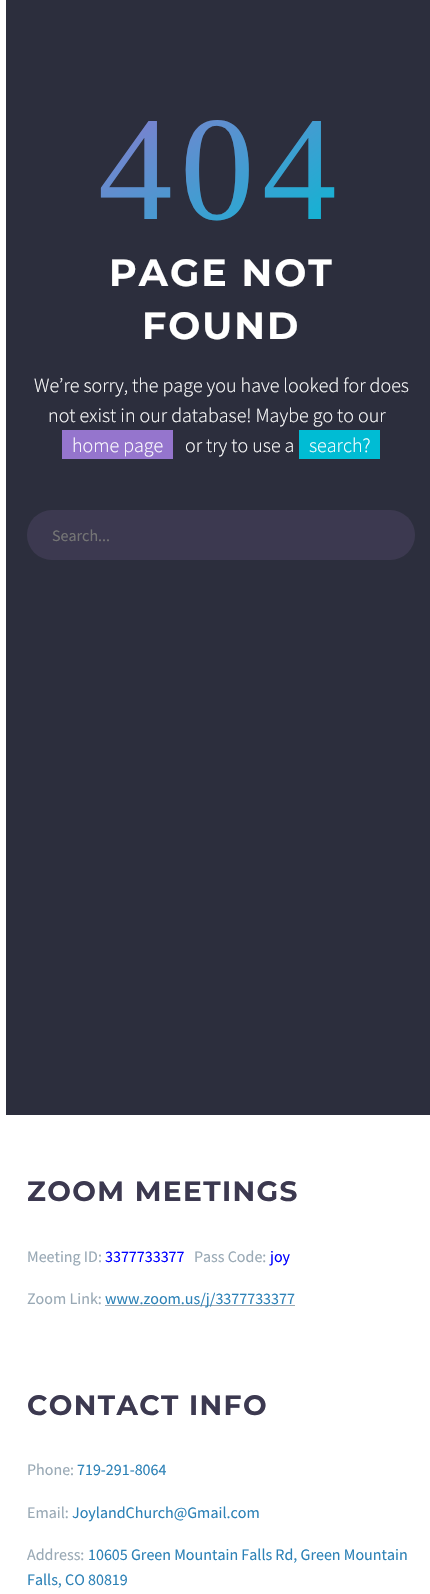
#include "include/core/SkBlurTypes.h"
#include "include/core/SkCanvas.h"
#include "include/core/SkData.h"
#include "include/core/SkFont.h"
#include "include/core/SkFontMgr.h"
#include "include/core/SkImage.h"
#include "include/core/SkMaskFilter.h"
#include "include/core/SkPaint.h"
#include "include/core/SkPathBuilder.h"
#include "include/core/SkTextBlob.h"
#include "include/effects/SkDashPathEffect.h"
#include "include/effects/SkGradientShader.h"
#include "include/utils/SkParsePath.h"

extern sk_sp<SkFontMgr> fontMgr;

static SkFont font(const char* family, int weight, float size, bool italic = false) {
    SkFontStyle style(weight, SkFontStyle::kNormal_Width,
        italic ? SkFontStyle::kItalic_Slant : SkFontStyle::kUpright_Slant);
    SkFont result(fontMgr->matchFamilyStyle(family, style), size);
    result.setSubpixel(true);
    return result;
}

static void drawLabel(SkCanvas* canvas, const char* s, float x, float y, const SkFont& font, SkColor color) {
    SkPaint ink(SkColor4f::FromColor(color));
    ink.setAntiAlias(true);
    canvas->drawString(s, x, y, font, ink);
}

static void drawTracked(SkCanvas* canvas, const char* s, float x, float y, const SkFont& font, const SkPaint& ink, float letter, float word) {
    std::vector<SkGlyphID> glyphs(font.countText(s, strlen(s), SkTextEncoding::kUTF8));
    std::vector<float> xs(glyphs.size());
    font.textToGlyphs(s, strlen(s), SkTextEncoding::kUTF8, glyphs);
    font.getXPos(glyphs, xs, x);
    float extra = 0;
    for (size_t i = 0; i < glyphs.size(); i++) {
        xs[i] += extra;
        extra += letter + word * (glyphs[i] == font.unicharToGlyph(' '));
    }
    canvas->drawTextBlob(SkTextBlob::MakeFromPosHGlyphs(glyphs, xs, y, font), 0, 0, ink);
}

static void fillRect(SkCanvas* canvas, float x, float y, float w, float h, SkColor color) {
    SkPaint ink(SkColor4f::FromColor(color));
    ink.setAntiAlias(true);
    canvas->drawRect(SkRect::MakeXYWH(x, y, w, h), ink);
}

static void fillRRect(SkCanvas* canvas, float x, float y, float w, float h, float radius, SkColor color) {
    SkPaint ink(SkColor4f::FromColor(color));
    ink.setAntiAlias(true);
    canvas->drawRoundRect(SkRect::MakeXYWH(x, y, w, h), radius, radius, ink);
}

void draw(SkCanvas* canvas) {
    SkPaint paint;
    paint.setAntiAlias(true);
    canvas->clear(0xFFFFFFFF);
    fillRect(canvas, 6, 0, 424, 1115, 0xFF2C2E3D);
    SkFont font1 = font("Liberation Serif", 400, 149);
    {
        const SkColor colors[] = {0xFF9575CD, 0xFF00BCD4};
        const float stops[] = {0, 1};
        const SkPoint ends[] = {{98, 86}, {251, 313}};
        paint.setShader(SkGradientShader::MakeLinear(ends, colors, stops, 2, SkTileMode::kClamp));
        paint.setAlpha(255);
    }
    drawTracked(canvas, "404", 98, 219, font1, paint, 7.5f, 0);
    SkFont font2 = font("Montserrat", 700, 38);
    paint.setShader(nullptr);
    paint.setColor(0xFFFFFFFF);
    drawTracked(canvas, "PAGE NOT", 109, 286, font2, paint, 2, 0);
    drawTracked(canvas, "FOUND", 142, 339, font2, paint, 2, 0);
    SkFont font3 = font("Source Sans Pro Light", 300, 20);
    drawLabel(canvas, "We’re sorry, the page you have looked for does", 34, 392, font3, 0xFFFFFFFF);
    drawLabel(canvas, "not exist in our database! Maybe go to our", 48, 422, font3, 0xFFFFFFFF);
    fillRect(canvas, 62, 430, 111, 29, 0xFF9575CD);
    drawLabel(canvas, "home page", 72, 452, font3, 0xFFFFFFFF);
    drawLabel(canvas, "or try to use a", 185, 452, font3, 0xFFFFFFFF);
    fillRect(canvas, 299, 430, 81, 29, 0xFF00BCD4);
    drawLabel(canvas, "search?", 309, 452, font3, 0xFFFFFFFF);
    fillRRect(canvas, 27, 510, 388, 50, 25, 0xFF3C3950);
    SkFont font4 = font("Source Sans Pro", 400, 16);
    drawLabel(canvas, "Search...", 52, 541, font4, 0xFF757575);
    SkFont font5 = font("Montserrat", 700, 28);
    paint.setColor(0xFF3C3950);
    drawTracked(canvas, "ZOOM MEETINGS", 27, 1201, font5, paint, 1.4f, 0);
    drawLabel(canvas, "Meeting ID:", 27, 1262, font4, 0xFF99A9B5);
    drawLabel(canvas, "3377733377", 105, 1262, font4, 0xFF0000FF);
    drawLabel(canvas, "Pass Code:", 194, 1262, font4, 0xFF99A9B5);
    drawLabel(canvas, "joy", 270, 1262, font4, 0xFF0000FF);
    drawLabel(canvas, "Zoom Link:", 27, 1304, font4, 0xFF99A9B5);
    fillRect(canvas, 105, 1305, 190, 1, 0xFF99A9B5);
    drawLabel(canvas, "www.zoom.us/j/3377733377", 105, 1304, font4, 0xFF2D82B7);
    drawTracked(canvas, "CONTACT INFO", 27, 1415, font5, paint, 1.4f, 0);
    drawLabel(canvas, "Phone:", 27, 1475, font4, 0xFF99A9B5);
    drawLabel(canvas, "719-291-8064", 77, 1475, font4, 0xFF2D82B7);
    drawLabel(canvas, "Email:", 27, 1518, font4, 0xFF99A9B5);
    drawLabel(canvas, "JoylandChurch@Gmail.com", 72, 1518, font4, 0xFF2D82B7);
    drawLabel(canvas, "Address:", 27, 1560, font4, 0xFF99A9B5);
    drawLabel(canvas, "10605 Green Mountain Falls Rd, Green Mountain", 88, 1560, font4, 0xFF2D82B7);
    drawLabel(canvas, "Falls, CO 80819", 27, 1585, font4, 0xFF2D82B7);
}
